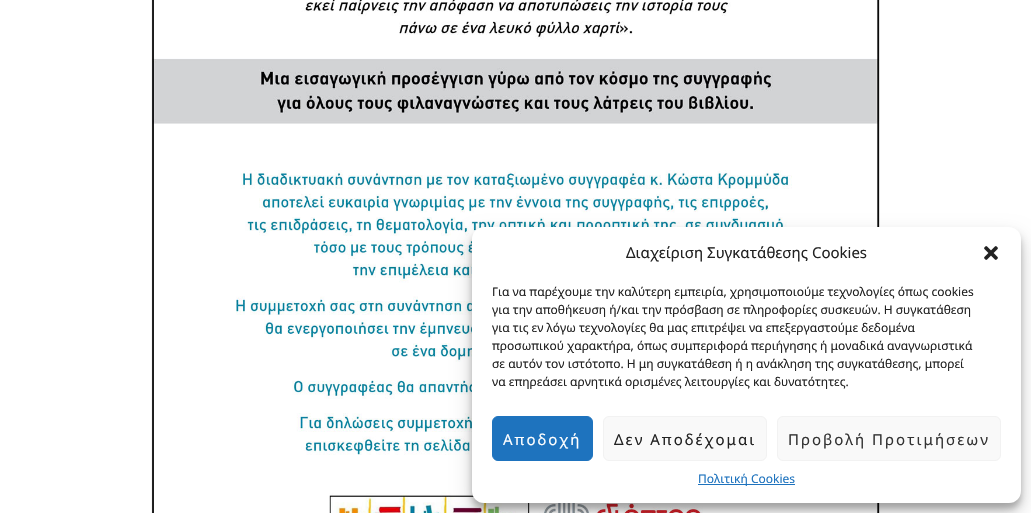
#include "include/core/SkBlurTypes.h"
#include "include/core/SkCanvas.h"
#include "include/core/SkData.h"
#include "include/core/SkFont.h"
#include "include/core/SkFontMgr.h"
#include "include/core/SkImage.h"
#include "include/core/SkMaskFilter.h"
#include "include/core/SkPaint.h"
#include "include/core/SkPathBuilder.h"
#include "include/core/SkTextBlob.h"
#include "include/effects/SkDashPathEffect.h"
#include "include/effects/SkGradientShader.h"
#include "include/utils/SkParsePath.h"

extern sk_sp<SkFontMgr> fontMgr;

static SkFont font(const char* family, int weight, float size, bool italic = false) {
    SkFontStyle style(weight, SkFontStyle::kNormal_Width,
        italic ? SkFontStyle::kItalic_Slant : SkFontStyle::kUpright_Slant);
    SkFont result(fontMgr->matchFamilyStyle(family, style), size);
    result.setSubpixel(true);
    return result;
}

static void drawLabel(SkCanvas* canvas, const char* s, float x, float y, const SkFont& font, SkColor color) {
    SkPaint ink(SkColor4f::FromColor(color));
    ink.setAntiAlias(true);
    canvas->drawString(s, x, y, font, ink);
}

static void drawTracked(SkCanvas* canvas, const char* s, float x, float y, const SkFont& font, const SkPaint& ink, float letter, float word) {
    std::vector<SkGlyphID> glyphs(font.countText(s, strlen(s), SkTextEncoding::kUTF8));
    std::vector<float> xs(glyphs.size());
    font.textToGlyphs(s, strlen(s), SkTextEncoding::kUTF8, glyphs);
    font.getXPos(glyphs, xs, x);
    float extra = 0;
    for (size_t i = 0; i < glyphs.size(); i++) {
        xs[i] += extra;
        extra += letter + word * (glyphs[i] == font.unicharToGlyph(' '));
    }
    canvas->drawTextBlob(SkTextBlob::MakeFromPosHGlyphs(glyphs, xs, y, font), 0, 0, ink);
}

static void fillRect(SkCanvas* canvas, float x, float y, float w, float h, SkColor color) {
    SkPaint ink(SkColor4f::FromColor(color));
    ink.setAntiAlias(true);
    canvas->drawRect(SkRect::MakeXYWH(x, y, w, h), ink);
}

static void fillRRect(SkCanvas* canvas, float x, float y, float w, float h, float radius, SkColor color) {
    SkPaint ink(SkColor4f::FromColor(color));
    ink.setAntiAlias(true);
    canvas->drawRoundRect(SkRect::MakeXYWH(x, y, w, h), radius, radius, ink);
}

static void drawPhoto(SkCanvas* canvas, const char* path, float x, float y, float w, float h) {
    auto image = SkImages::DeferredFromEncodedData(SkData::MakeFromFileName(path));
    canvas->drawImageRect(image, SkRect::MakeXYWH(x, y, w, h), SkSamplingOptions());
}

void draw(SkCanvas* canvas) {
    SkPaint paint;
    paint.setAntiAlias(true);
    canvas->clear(0xFFFFFFFF);
    drawPhoto(canvas, "assets/img1.png", 151, 0, 729, 513);
    paint.setColor(0x3B000000);
    paint.setMaskFilter(SkMaskFilter::MakeBlur(kNormal_SkBlurStyle, 3));
    canvas->drawRoundRect(SkRect::MakeXYWH(472, 233, 549, 276), 12, 12, paint);
    paint.setMaskFilter(nullptr);
    paint.setColor(0x30000000);
    paint.setMaskFilter(SkMaskFilter::MakeBlur(kNormal_SkBlurStyle, 10));
    canvas->drawRoundRect(SkRect::MakeXYWH(472, 237, 549, 276), 12, 12, paint);
    paint.setMaskFilter(nullptr);
    fillRRect(canvas, 472, 227, 549, 276, 12, 0xFFFFFFFF);
    SkFont font1 = font("Noto Sans", 400, 15);
    drawLabel(canvas, "Διαχείριση Συγκατάθεσης Cookies", 626, 258, font1, 0xFF222222);
    drawPhoto(canvas, "assets/img2.png", 984, 246, 14, 14);
    SkFont font2 = font("Noto Sans", 400, 12);
    drawLabel(canvas, "Για να παρέχουμε την καλύτερη εμπειρία, χρησιμοποιούμε τεχνολογίες όπως cookies", 492, 296, font2, 0xFF222222);
    drawLabel(canvas, "για την αποθήκευση ή/και την πρόσβαση σε πληροφορίες συσκευών. Η συγκατάθεση", 492, 314, font2, 0xFF222222);
    drawLabel(canvas, "για τις εν λόγω τεχνολογίες θα μας επιτρέψει να επεξεργαστούμε δεδομένα", 492, 332, font2, 0xFF222222);
    drawLabel(canvas, "προσωπικού χαρακτήρα, όπως συμπεριφορά περιήγησης ή μοναδικά αναγνωριστικά", 492, 350, font2, 0xFF222222);
    drawLabel(canvas, "σε αυτόν τον ιστότοπο. Η μη συγκατάθεση ή η ανάκληση της συγκατάθεσης, μπορεί", 492, 368, font2, 0xFF222222);
    drawLabel(canvas, "να επηρεάσει αρνητικά ορισμένες λειτουργίες και δυνατότητες.", 492, 386, font2, 0xFF222222);
    paint.setColor(0xFF1E73BE);
    canvas->drawRoundRect(SkRect::MakeXYWH(492.5f, 416.5f, 100, 44), 5.5f, 5.5f, paint);
    paint.setStroke(true);
    paint.setStrokeWidth(1);
    canvas->drawRoundRect(SkRect::MakeXYWH(492.5f, 416.5f, 100, 44), 5.5f, 5.5f, paint);
    paint.setStroke(false);
    paint.setColor(0xFFFFFFFF);
    drawTracked(canvas, "Αποδοχή", 503, 445, font1, paint, 2, 0);
    paint.setColor(0xFFF9F9F9);
    canvas->drawRoundRect(SkRect::MakeXYWH(603.5f, 416.5f, 163, 44), 5.5f, 5.5f, paint);
    paint.setStroke(true);
    paint.setColor(0xFFF2F2F2);
    canvas->drawRoundRect(SkRect::MakeXYWH(603.5f, 416.5f, 163, 44), 5.5f, 5.5f, paint);
    paint.setStroke(false);
    paint.setColor(0xFF222222);
    drawTracked(canvas, "Δεν Αποδέχομαι", 614, 445, font1, paint, 2, 0);
    paint.setColor(0xFFF9F9F9);
    canvas->drawRoundRect(SkRect::MakeXYWH(777.5f, 416.5f, 223, 44), 5.5f, 5.5f, paint);
    paint.setStroke(true);
    paint.setColor(0xFFF2F2F2);
    canvas->drawRoundRect(SkRect::MakeXYWH(777.5f, 416.5f, 223, 44), 5.5f, 5.5f, paint);
    paint.setStroke(false);
    paint.setColor(0xFF333333);
    drawTracked(canvas, "Προβολή Προτιμήσεων", 788, 445, font1, paint, 2, 0);
    fillRect(canvas, 698, 484, 97, 1, 0xFF1E73BE);
    drawLabel(canvas, "Πολιτική Cookies", 698, 483, font2, 0xFF1E73BE);
}
